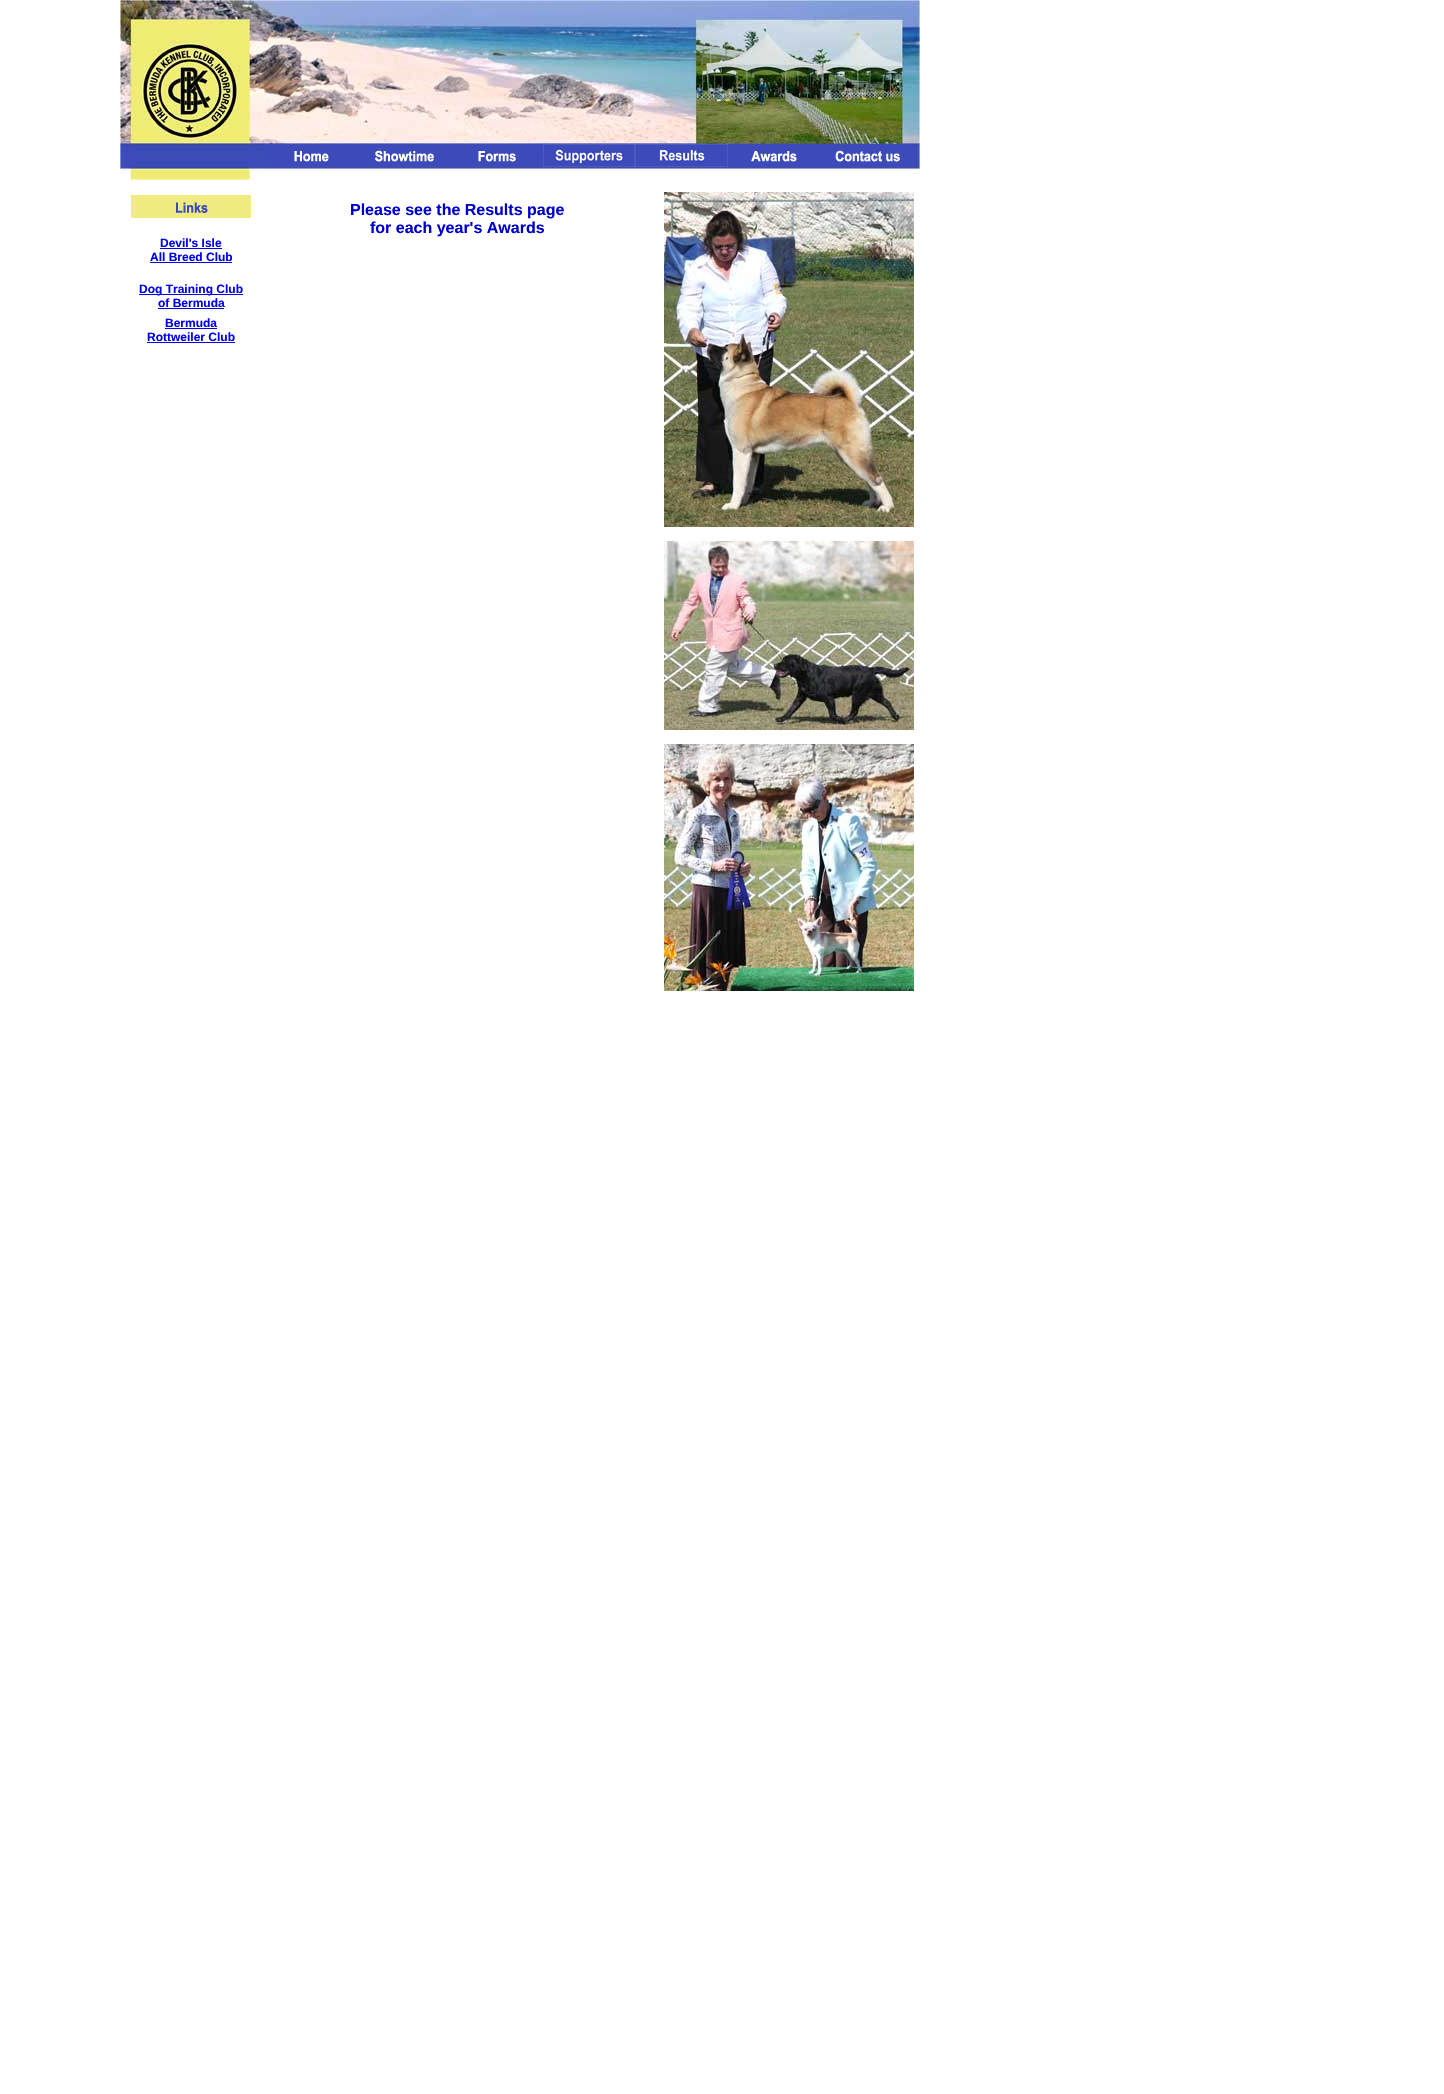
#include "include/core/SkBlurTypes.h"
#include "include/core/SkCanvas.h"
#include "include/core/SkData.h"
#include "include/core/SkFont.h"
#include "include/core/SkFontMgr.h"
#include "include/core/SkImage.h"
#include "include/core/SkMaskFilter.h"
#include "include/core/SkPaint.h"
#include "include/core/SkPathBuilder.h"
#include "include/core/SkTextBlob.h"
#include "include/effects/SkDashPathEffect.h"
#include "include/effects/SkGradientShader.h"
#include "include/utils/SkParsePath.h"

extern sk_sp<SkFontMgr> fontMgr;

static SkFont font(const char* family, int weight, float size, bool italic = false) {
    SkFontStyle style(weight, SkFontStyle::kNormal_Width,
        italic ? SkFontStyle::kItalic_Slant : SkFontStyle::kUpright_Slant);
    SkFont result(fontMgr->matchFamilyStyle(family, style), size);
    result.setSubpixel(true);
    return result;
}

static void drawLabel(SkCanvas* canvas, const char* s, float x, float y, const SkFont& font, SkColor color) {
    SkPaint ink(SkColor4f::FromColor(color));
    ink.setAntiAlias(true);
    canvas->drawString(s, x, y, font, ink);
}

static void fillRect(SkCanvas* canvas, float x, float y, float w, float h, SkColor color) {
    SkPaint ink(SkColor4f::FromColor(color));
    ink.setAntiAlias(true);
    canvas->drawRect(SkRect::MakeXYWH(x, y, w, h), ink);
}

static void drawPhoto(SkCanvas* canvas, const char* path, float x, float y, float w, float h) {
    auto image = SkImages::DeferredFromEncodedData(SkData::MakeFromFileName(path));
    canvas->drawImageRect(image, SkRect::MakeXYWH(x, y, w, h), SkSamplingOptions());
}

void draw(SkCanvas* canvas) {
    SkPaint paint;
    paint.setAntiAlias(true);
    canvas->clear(0xFFFFFFFF);
    drawPhoto(canvas, "assets/img1.png", 120, 0, 800, 180);
    drawPhoto(canvas, "assets/img2.png", 265, 144, 93, 22);
    drawPhoto(canvas, "assets/img3.png", 358, 144, 93, 22);
    drawPhoto(canvas, "assets/img4.png", 451, 144, 92, 22);
    drawPhoto(canvas, "assets/img5.png", 543, 144, 92, 23);
    drawPhoto(canvas, "assets/img6.png", 635, 144, 93, 23);
    drawPhoto(canvas, "assets/img7.png", 728, 144, 93, 22);
    drawPhoto(canvas, "assets/img8.png", 821, 144, 93, 23);
    SkFont font1 = font("Liberation Sans", 700, 16);
    drawLabel(canvas, "Please see the Results page", 350, 215, font1, 0xFF0000CC);
    drawLabel(canvas, "for each year's Awards", 370, 233, font1, 0xFF0000CC);
    drawPhoto(canvas, "assets/img9.png", 664, 192, 250, 335);
    drawPhoto(canvas, "assets/img10.png", 664, 541, 250, 189);
    drawPhoto(canvas, "assets/img11.png", 664, 744, 250, 247);
    drawPhoto(canvas, "assets/img12.png", 131, 195, 120, 23);
    SkFont font2 = font("Liberation Sans", 700, 12);
    drawLabel(canvas, "Devil's Isle", 160, 247, font2, 0xFF0000EE);
    fillRect(canvas, 160, 248, 62, 1, 0xFF0000EE);
    drawLabel(canvas, "All Breed Club", 150, 261, font2, 0xFF0000EE);
    fillRect(canvas, 150, 262, 82, 1, 0xFF0000EE);
    fillRect(canvas, 139, 294, 104, 1, 0xFF0000EE);
    drawLabel(canvas, "Dog Training Club", 139, 293, font2, 0xFF0000EE);
    drawLabel(canvas, "of Bermuda", 158, 307, font2, 0xFF0000EE);
    fillRect(canvas, 158, 308, 66, 1, 0xFF0000EE);
    drawLabel(canvas, "Bermuda", 165, 327, font2, 0xFF0000EE);
    fillRect(canvas, 165, 328, 52, 1, 0xFF0000EE);
    drawLabel(canvas, "Rottweiler Club", 147, 341, font2, 0xFF0000EE);
    fillRect(canvas, 147, 342, 88, 1, 0xFF0000EE);
}
